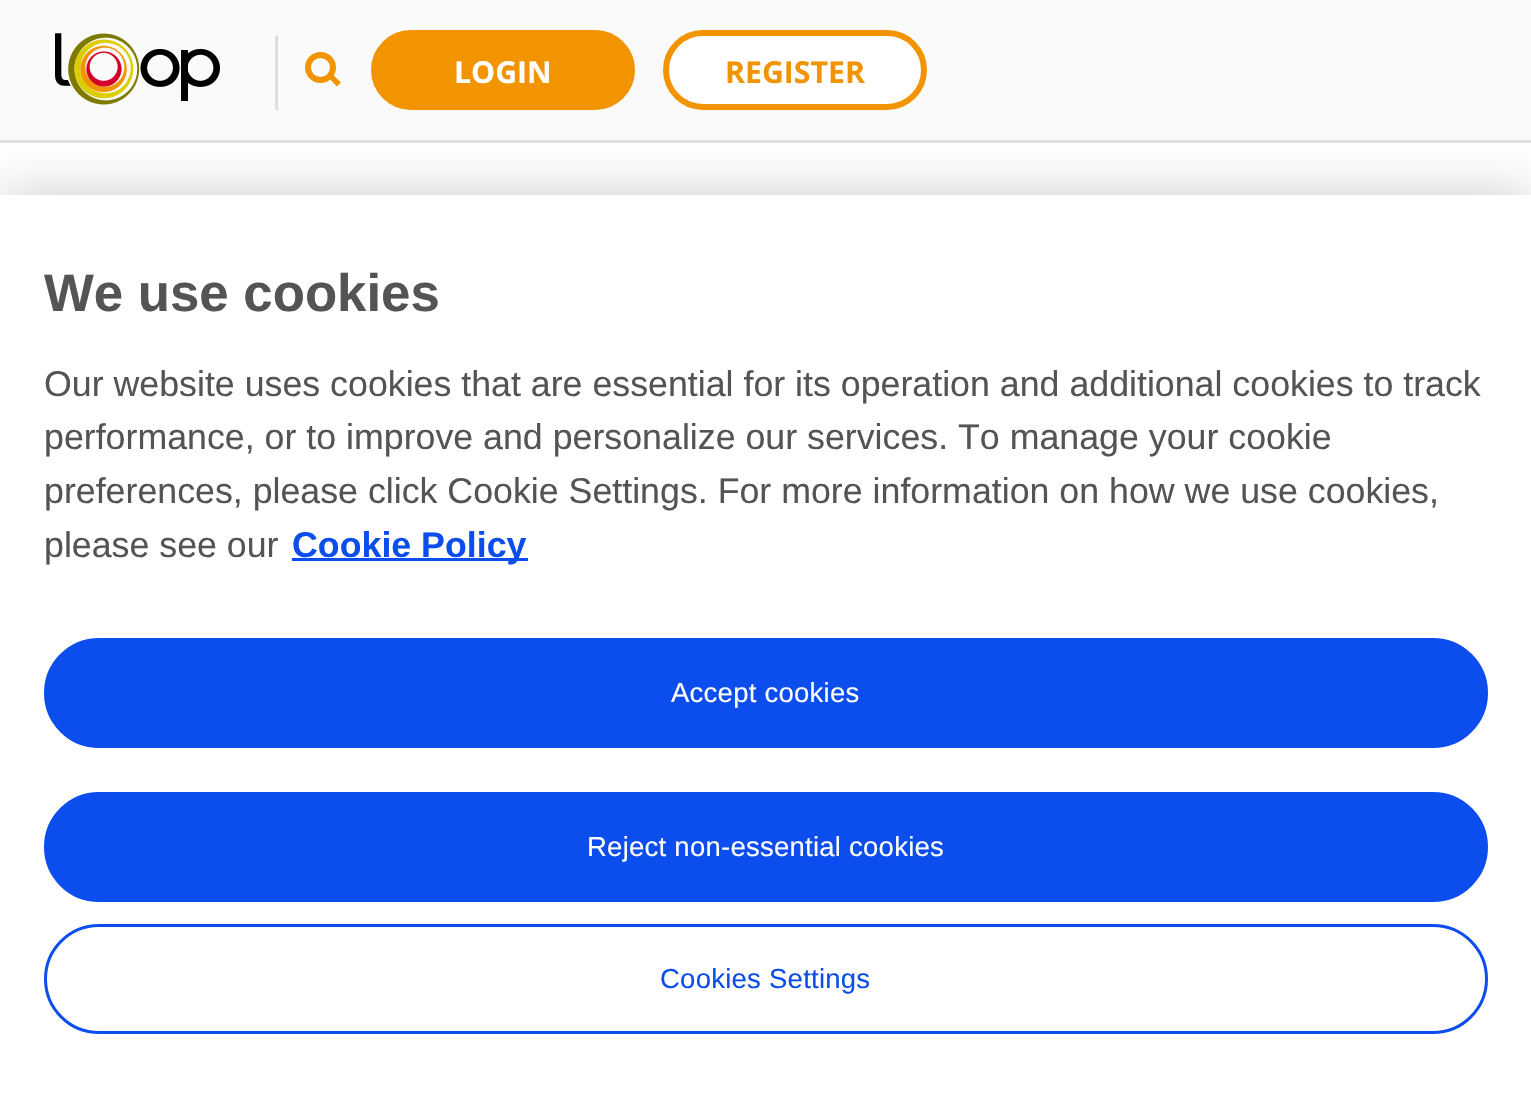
#include "include/core/SkBlurTypes.h"
#include "include/core/SkCanvas.h"
#include "include/core/SkData.h"
#include "include/core/SkFont.h"
#include "include/core/SkFontMgr.h"
#include "include/core/SkImage.h"
#include "include/core/SkMaskFilter.h"
#include "include/core/SkPaint.h"
#include "include/core/SkPathBuilder.h"
#include "include/core/SkTextBlob.h"
#include "include/effects/SkDashPathEffect.h"
#include "include/effects/SkGradientShader.h"
#include "include/utils/SkParsePath.h"

extern sk_sp<SkFontMgr> fontMgr;

static SkFont font(const char* family, int weight, float size, bool italic = false) {
    SkFontStyle style(weight, SkFontStyle::kNormal_Width,
        italic ? SkFontStyle::kItalic_Slant : SkFontStyle::kUpright_Slant);
    SkFont result(fontMgr->matchFamilyStyle(family, style), size);
    result.setSubpixel(true);
    return result;
}

static void drawLabel(SkCanvas* canvas, const char* s, float x, float y, const SkFont& font, SkColor color) {
    SkPaint ink(SkColor4f::FromColor(color));
    ink.setAntiAlias(true);
    canvas->drawString(s, x, y, font, ink);
}

static void drawTracked(SkCanvas* canvas, const char* s, float x, float y, const SkFont& font, const SkPaint& ink, float letter, float word) {
    std::vector<SkGlyphID> glyphs(font.countText(s, strlen(s), SkTextEncoding::kUTF8));
    std::vector<float> xs(glyphs.size());
    font.textToGlyphs(s, strlen(s), SkTextEncoding::kUTF8, glyphs);
    font.getXPos(glyphs, xs, x);
    float extra = 0;
    for (size_t i = 0; i < glyphs.size(); i++) {
        xs[i] += extra;
        extra += letter + word * (glyphs[i] == font.unicharToGlyph(' '));
    }
    canvas->drawTextBlob(SkTextBlob::MakeFromPosHGlyphs(glyphs, xs, y, font), 0, 0, ink);
}

static void fillRect(SkCanvas* canvas, float x, float y, float w, float h, SkColor color) {
    SkPaint ink(SkColor4f::FromColor(color));
    ink.setAntiAlias(true);
    canvas->drawRect(SkRect::MakeXYWH(x, y, w, h), ink);
}

static void drawPhoto(SkCanvas* canvas, const char* path, float x, float y, float w, float h) {
    auto image = SkImages::DeferredFromEncodedData(SkData::MakeFromFileName(path));
    canvas->drawImageRect(image, SkRect::MakeXYWH(x, y, w, h), SkSamplingOptions());
}

static SkPath parsePath(const char* data, bool evenOdd = false) {
    SkPath result = *SkParsePath::FromSVGString(data);
    if (evenOdd) result.setFillType(SkPathFillType::kEvenOdd);
    return result;
}

void draw(SkCanvas* canvas) {
    SkPaint paint;
    paint.setAntiAlias(true);
    canvas->clear(0xFFFFFFFF);
    fillRect(canvas, 0, 0, 1531, 140, 0xFFFAFAFA);
    fillRect(canvas, 0, 140, 1531, 3, 0xFFE0E0E0);
    drawPhoto(canvas, "assets/img1.png", 55, 33, 165, 72);
    paint.setStroke(true);
    paint.setStrokeWidth(2.8f);
    paint.setColor(0xFFDCDCDC);
    canvas->drawPath(parsePath("M277.5 110L276.5 107.5V38L277.5 35.5"), paint);
    paint.setStroke(false);
    paint.setColor(0xFFF29400);
    canvas->drawCircle(320.5f, 67.5f, 15.5f, paint);
    paint.setColor(0xFFF9F9F9);
    canvas->drawCircle(320.5f, 67.5f, 9.5f, paint);
    paint.setColor(0xFFF29400);
    canvas->drawPath(parsePath("M331 73L341 82.5L337 86.5L327.5 77Z"), paint);
    canvas->drawRoundRect(SkRect::MakeXYWH(374, 33, 258, 74), 37, 37, paint);
    paint.setStroke(true);
    paint.setStrokeWidth(6);
    canvas->drawRoundRect(SkRect::MakeXYWH(374, 33, 258, 74), 37, 37, paint);
    SkFont font1 = font("Open Sans", 700, 30.25f);
    drawLabel(canvas, "LOGIN", 454, 83, font1, 0xFFFFFFFF);
    paint.setStroke(false);
    paint.setColor(0xFFFFFFFF);
    canvas->drawRoundRect(SkRect::MakeXYWH(666, 33, 258, 74), 37, 37, paint);
    paint.setStroke(true);
    paint.setColor(0xFFF29400);
    canvas->drawRoundRect(SkRect::MakeXYWH(666, 33, 258, 74), 37, 37, paint);
    drawLabel(canvas, "REGISTER", 725, 83, font1, 0xFFF29400);
    paint.setStroke(false);
    paint.setColor(0x33000000);
    paint.setMaskFilter(SkMaskFilter::MakeBlur(kNormal_SkBlurStyle, 25));
    canvas->drawRect(SkRect::MakeXYWH(0, 195, 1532, 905), paint);
    paint.setMaskFilter(nullptr);
    fillRect(canvas, 0, 195, 1531, 904, 0xFFFFFFFF);
    SkFont font2 = font("Liberation Sans", 700, 52.75f);
    drawLabel(canvas, "We use cookies", 44, 311, font2, 0xFF545454);
    SkFont font3 = font("Liberation Sans", 400, 35.75f);
    drawLabel(canvas, "Our website uses cookies that are essential for its operation and additional cookies to track", 44, 396, font3, 0xFF545454);
    drawLabel(canvas, "performance, or to improve and personalize our services. To manage your cookie", 44, 449, font3, 0xFF545454);
    drawLabel(canvas, "preferences, please click Cookie Settings. For more information on how we use cookies,", 44, 503, font3, 0xFF545454);
    drawLabel(canvas, "please see our", 44, 557, font3, 0xFF545454);
    fillRect(canvas, 292, 558, 236, 3, 0xFF0C4DED);
    SkFont font4 = font("Liberation Sans", 700, 35.75f);
    drawLabel(canvas, "Cookie Policy", 292, 557, font4, 0xFF0C4DED);
    paint.setColor(0xFF0C4DED);
    canvas->drawRoundRect(SkRect::MakeXYWH(45.5f, 639.5f, 1441, 107), 53.5f, 53.5f, paint);
    paint.setStroke(true);
    paint.setStrokeWidth(3);
    canvas->drawRoundRect(SkRect::MakeXYWH(45.5f, 639.5f, 1441, 107), 53.5f, 53.5f, paint);
    SkFont font5 = font("Liberation Sans", 400, 27.5f);
    paint.setStroke(false);
    paint.setColor(0xFFFFFFFF);
    drawTracked(canvas, "Accept cookies", 671, 702, font5, paint, 0.25f, 0);
    paint.setColor(0xFF0C4DED);
    canvas->drawRoundRect(SkRect::MakeXYWH(45.5f, 793.5f, 1441, 107), 53.5f, 53.5f, paint);
    paint.setStroke(true);
    canvas->drawRoundRect(SkRect::MakeXYWH(45.5f, 793.5f, 1441, 107), 53.5f, 53.5f, paint);
    paint.setStroke(false);
    paint.setColor(0xFFFFFFFF);
    drawTracked(canvas, "Reject non-essential cookies", 587, 856, font5, paint, 0.25f, 0);
    paint.setStroke(true);
    paint.setColor(0xFF0C4DED);
    canvas->drawRoundRect(SkRect::MakeXYWH(45.5f, 925.5f, 1441, 107), 53.5f, 53.5f, paint);
    paint.setStroke(false);
    drawTracked(canvas, "Cookies Settings", 660, 988, font5, paint, 0.25f, 0);
}
